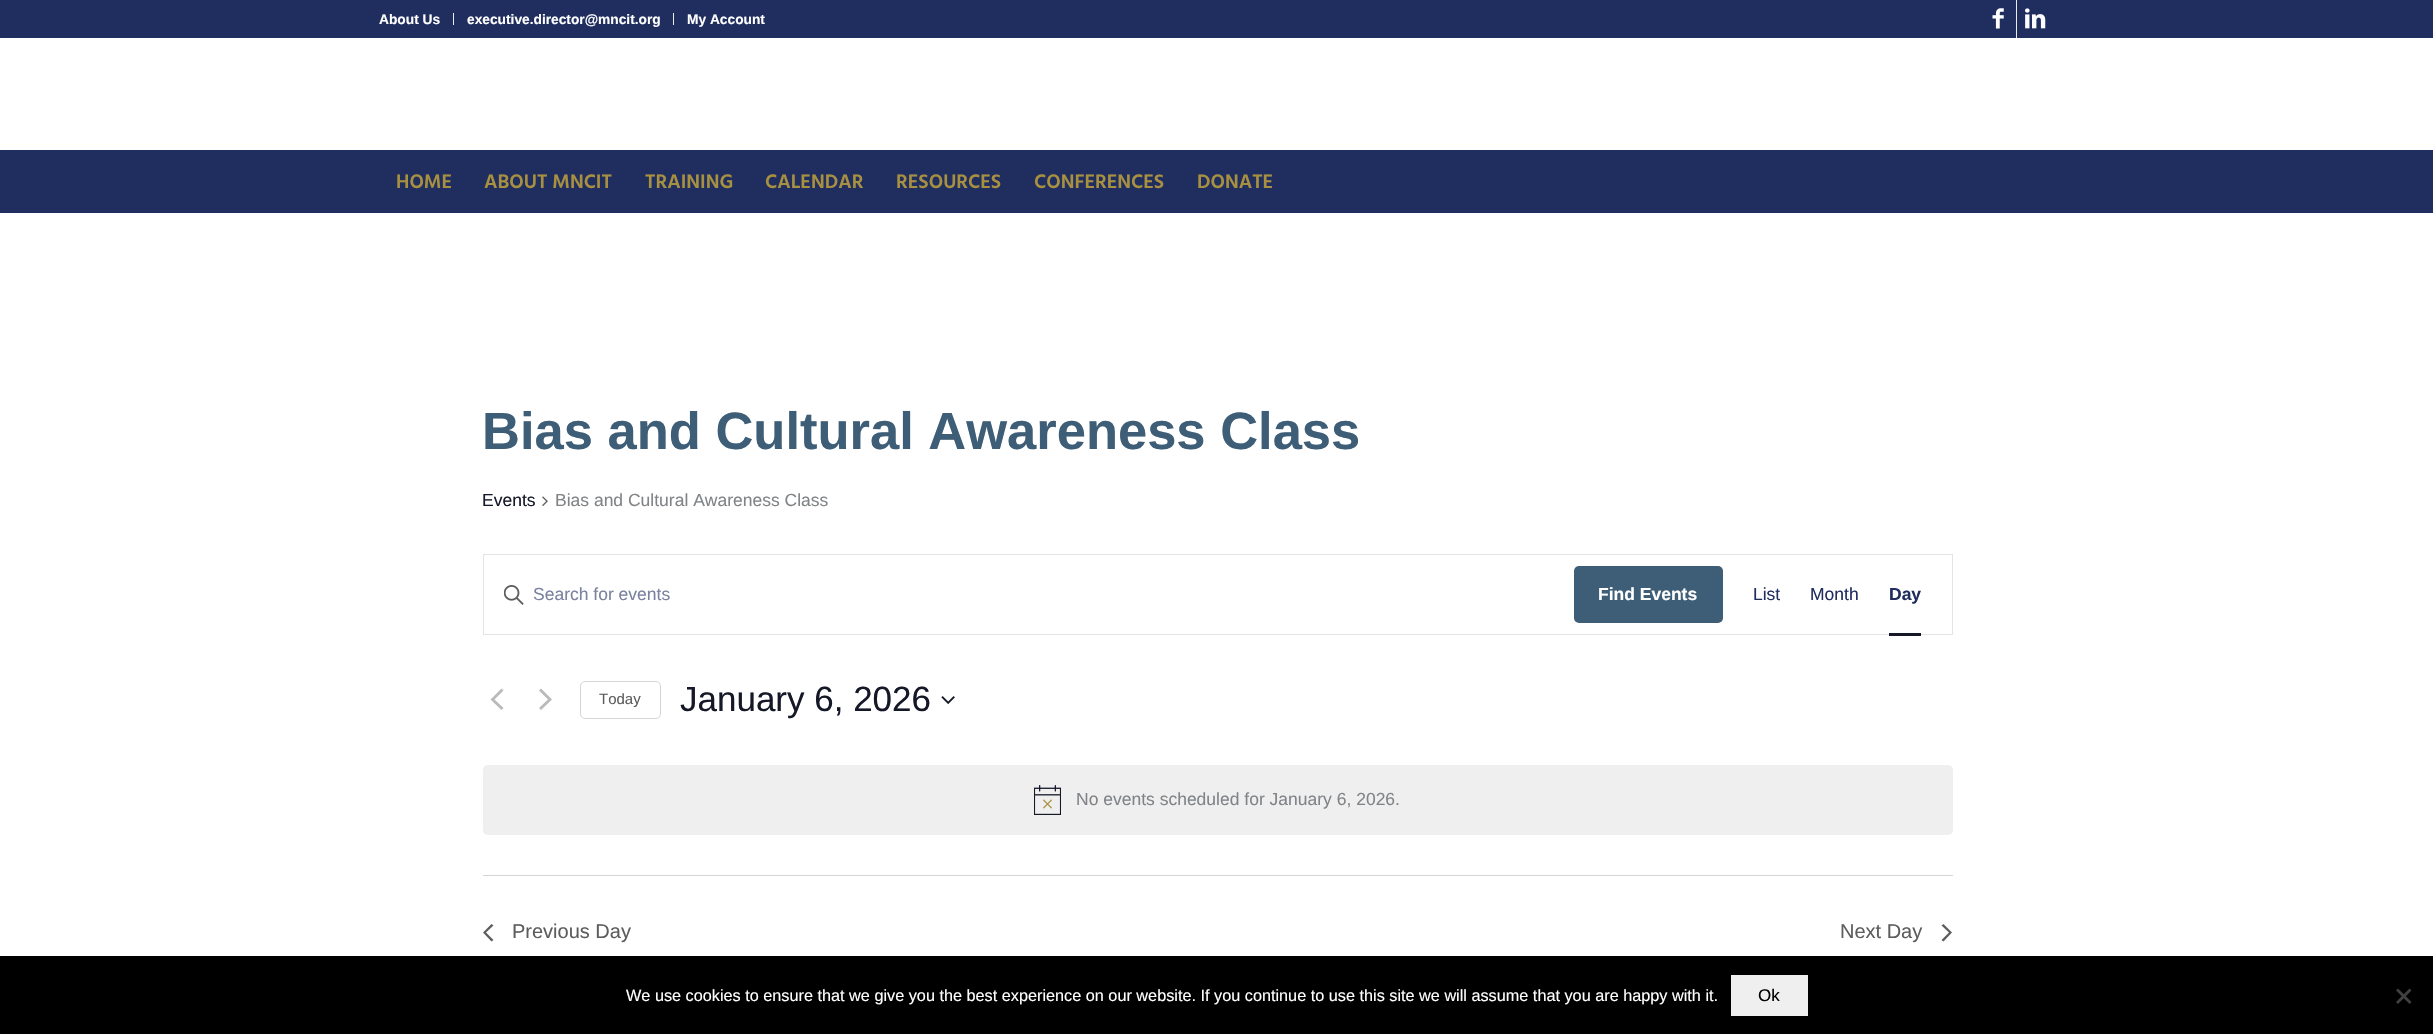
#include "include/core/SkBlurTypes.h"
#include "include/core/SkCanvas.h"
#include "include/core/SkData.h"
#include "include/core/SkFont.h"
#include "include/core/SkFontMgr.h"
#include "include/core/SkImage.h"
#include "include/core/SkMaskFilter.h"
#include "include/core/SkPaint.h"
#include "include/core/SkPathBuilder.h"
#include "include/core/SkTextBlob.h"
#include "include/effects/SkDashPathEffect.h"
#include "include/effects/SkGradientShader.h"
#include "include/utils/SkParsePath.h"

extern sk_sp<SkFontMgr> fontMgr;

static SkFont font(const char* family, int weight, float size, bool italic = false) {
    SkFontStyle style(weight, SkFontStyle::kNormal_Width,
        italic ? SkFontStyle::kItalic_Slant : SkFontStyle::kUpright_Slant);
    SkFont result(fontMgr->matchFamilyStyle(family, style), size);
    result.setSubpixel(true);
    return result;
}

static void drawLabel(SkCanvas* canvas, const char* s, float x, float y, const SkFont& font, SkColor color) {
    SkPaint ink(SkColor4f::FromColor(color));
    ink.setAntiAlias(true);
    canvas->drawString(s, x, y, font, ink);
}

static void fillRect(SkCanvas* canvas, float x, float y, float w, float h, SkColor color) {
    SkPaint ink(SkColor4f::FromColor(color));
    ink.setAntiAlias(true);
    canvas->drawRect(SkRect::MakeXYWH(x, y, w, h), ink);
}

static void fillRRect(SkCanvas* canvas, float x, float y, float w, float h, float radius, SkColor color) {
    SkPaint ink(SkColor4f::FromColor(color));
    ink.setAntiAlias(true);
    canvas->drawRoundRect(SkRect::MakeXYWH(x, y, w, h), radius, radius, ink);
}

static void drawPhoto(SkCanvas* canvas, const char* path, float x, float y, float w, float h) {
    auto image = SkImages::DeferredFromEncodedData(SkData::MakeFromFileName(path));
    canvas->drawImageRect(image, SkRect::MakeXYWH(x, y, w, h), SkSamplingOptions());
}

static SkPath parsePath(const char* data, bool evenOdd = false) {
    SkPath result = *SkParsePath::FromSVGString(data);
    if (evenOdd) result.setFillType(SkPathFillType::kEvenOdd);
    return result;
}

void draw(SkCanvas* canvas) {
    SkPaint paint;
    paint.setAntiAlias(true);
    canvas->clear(0xFFFFFFFF);
    fillRect(canvas, 0, 0, 2433, 38, 0xFF202E5F);
    fillRect(canvas, 453, 13, 1, 12, 0xFFEBEBEB);
    SkFont font1 = font("Liberation Sans", 700, 13.75f);
    drawLabel(canvas, "About Us", 379, 24, font1, 0xFFFFFFFF);
    fillRect(canvas, 673, 13, 1, 12, 0xFFEBEBEB);
    drawLabel(canvas, "executive.director@mncit.org", 467, 24, font1, 0xFFFFFFFF);
    drawLabel(canvas, "My Account", 687, 24, font1, 0xFFFFFFFF);
    fillRect(canvas, 2016, 0, 1, 38, 0xFFEBEBEB);
    drawPhoto(canvas, "assets/img1.png", 1992, 8, 12, 21);
    drawPhoto(canvas, "assets/img2.png", 2025, 8, 21, 21);
    fillRect(canvas, 0, 150, 2433, 63, 0xFF202E5F);
    SkFont font2 = font("Hind", 600, 20);
    drawLabel(canvas, "HOME", 396, 188, font2, 0xFFA89041);
    drawLabel(canvas, "ABOUT MNCIT", 484, 188, font2, 0xFFA89041);
    drawLabel(canvas, "TRAINING", 645, 188, font2, 0xFFA89041);
    drawLabel(canvas, "CALENDAR", 765, 188, font2, 0xFFA89041);
    drawLabel(canvas, "RESOURCES", 896, 188, font2, 0xFFA89041);
    drawLabel(canvas, "CONFERENCES", 1034, 188, font2, 0xFFA89041);
    drawLabel(canvas, "DONATE", 1197, 188, font2, 0xFFA89041);
    SkFont font3 = font("Liberation Sans", 700, 52.5f);
    drawLabel(canvas, "Bias and Cultural Awareness Class", 482, 449, font3, 0xFF3E5D76);
    SkFont font4 = font("Liberation Sans", 400, 17.5f);
    drawLabel(canvas, "Events", 482, 506, font4, 0xFF141827);
    drawPhoto(canvas, "assets/img3.png", 542, 496, 6, 10);
    drawLabel(canvas, "Bias and Cultural Awareness Class", 555, 506, font4, 0xFF818487);
    paint.setStroke(true);
    paint.setStrokeWidth(1);
    paint.setColor(0xFFE4E4E4);
    canvas->drawRect(SkRect::MakeXYWH(483.5f, 554.5f, 1469, 80), paint);
    drawPhoto(canvas, "assets/img4.png", 504, 585, 20, 20);
    drawLabel(canvas, "Search for events", 533, 600, font4, 0xFF79829F);
    fillRRect(canvas, 1574, 566, 149, 57, 5, 0xFF3E5D76);
    SkFont font5 = font("Liberation Sans", 700, 17.5f);
    drawLabel(canvas, "Find Events", 1598, 600, font5, 0xFFFFFFFF);
    drawLabel(canvas, "List", 1753, 600, font4, 0xFF202E5F);
    drawLabel(canvas, "Month", 1810, 600, font4, 0xFF202E5F);
    drawLabel(canvas, "Day", 1889, 600, font5, 0xFF202E5F);
    fillRect(canvas, 1889, 633, 32, 3, 0xFF141827);
    paint.setStroke(false);
    paint.setColor(0xFFBABABA);
    canvas->drawPath(parsePath("M503.5 708L501.5 710L490.5 699.5L501.5 688.5L503.5 690.5L494.5 699.5ZM539 690.5L541 688.5L552 699.5L541 710L539 708L548 699.5Z"), paint);
    paint.setStroke(true);
    paint.setColor(0xFFD5D5D5);
    canvas->drawRoundRect(SkRect::MakeXYWH(580.5f, 681.5f, 80, 37), 4.5f, 4.5f, paint);
    SkFont font6 = font("Liberation Sans", 400, 15);
    drawLabel(canvas, "Today", 599, 704, font6, 0xFF5D5D5D);
    SkFont font7 = font("Liberation Sans", 400, 35);
    drawLabel(canvas, "January 6, 2026", 680, 711, font7, 0xFF141827);
    drawPhoto(canvas, "assets/img5.png", 941, 696, 14, 8);
    fillRRect(canvas, 483, 765, 1470, 70, 5, 0xFFEFEFF0);
    drawPhoto(canvas, "assets/img6.png", 1034, 785, 27, 30);
    drawLabel(canvas, "No events scheduled for January 6, 2026.", 1076, 805, font4, 0xFF818487);
    fillRect(canvas, 483, 875, 1470, 1, 0xFFD5D5D5);
    paint.setStroke(false);
    paint.setColor(0xFF5D5D5D);
    canvas->drawPath(parsePath("M493.5 940L491.5 941.5L483 932.5L491.5 924L493.5 925.5L486 932.5Z"), paint);
    SkFont font8 = font("Liberation Sans", 400, 20);
    drawLabel(canvas, "Previous Day", 512, 938, font8, 0xFF5D5D5D);
    drawLabel(canvas, "Next Day", 1840, 938, font8, 0xFF5D5D5D);
    canvas->drawPath(parsePath("M1941.5 925.5L1943.5 924L1952 932.5L1943.5 941.5L1941.5 940L1949 932.5Z"), paint);
    fillRect(canvas, 0, 956, 2433, 78, 0xFF000000);
    SkFont font9 = font("Liberation Sans", 400, 16.25f);
    drawLabel(canvas, "We use cookies to ensure that we give you the best experience on our website. If you continue to use this site we will assume that you are happy with it.", 626, 1001, font9, 0xFFFFFFFF);
    fillRect(canvas, 1731, 975, 77, 41, 0xFFEFEFEF);
    SkFont font10 = font("Liberation Sans", 400, 17);
    drawLabel(canvas, "Ok", 1758, 1001, font10, 0xFF000000);
    paint.setColor(0xFF404040);
    canvas->drawPath(parsePath("M2409.5 988.5L2411.5 990.5L2398 1004L2396 1002Z"), paint);
    canvas->drawPath(parsePath("M2396 990.5L2398 988.5L2411.5 1002L2409.5 1004Z"), paint);
}
